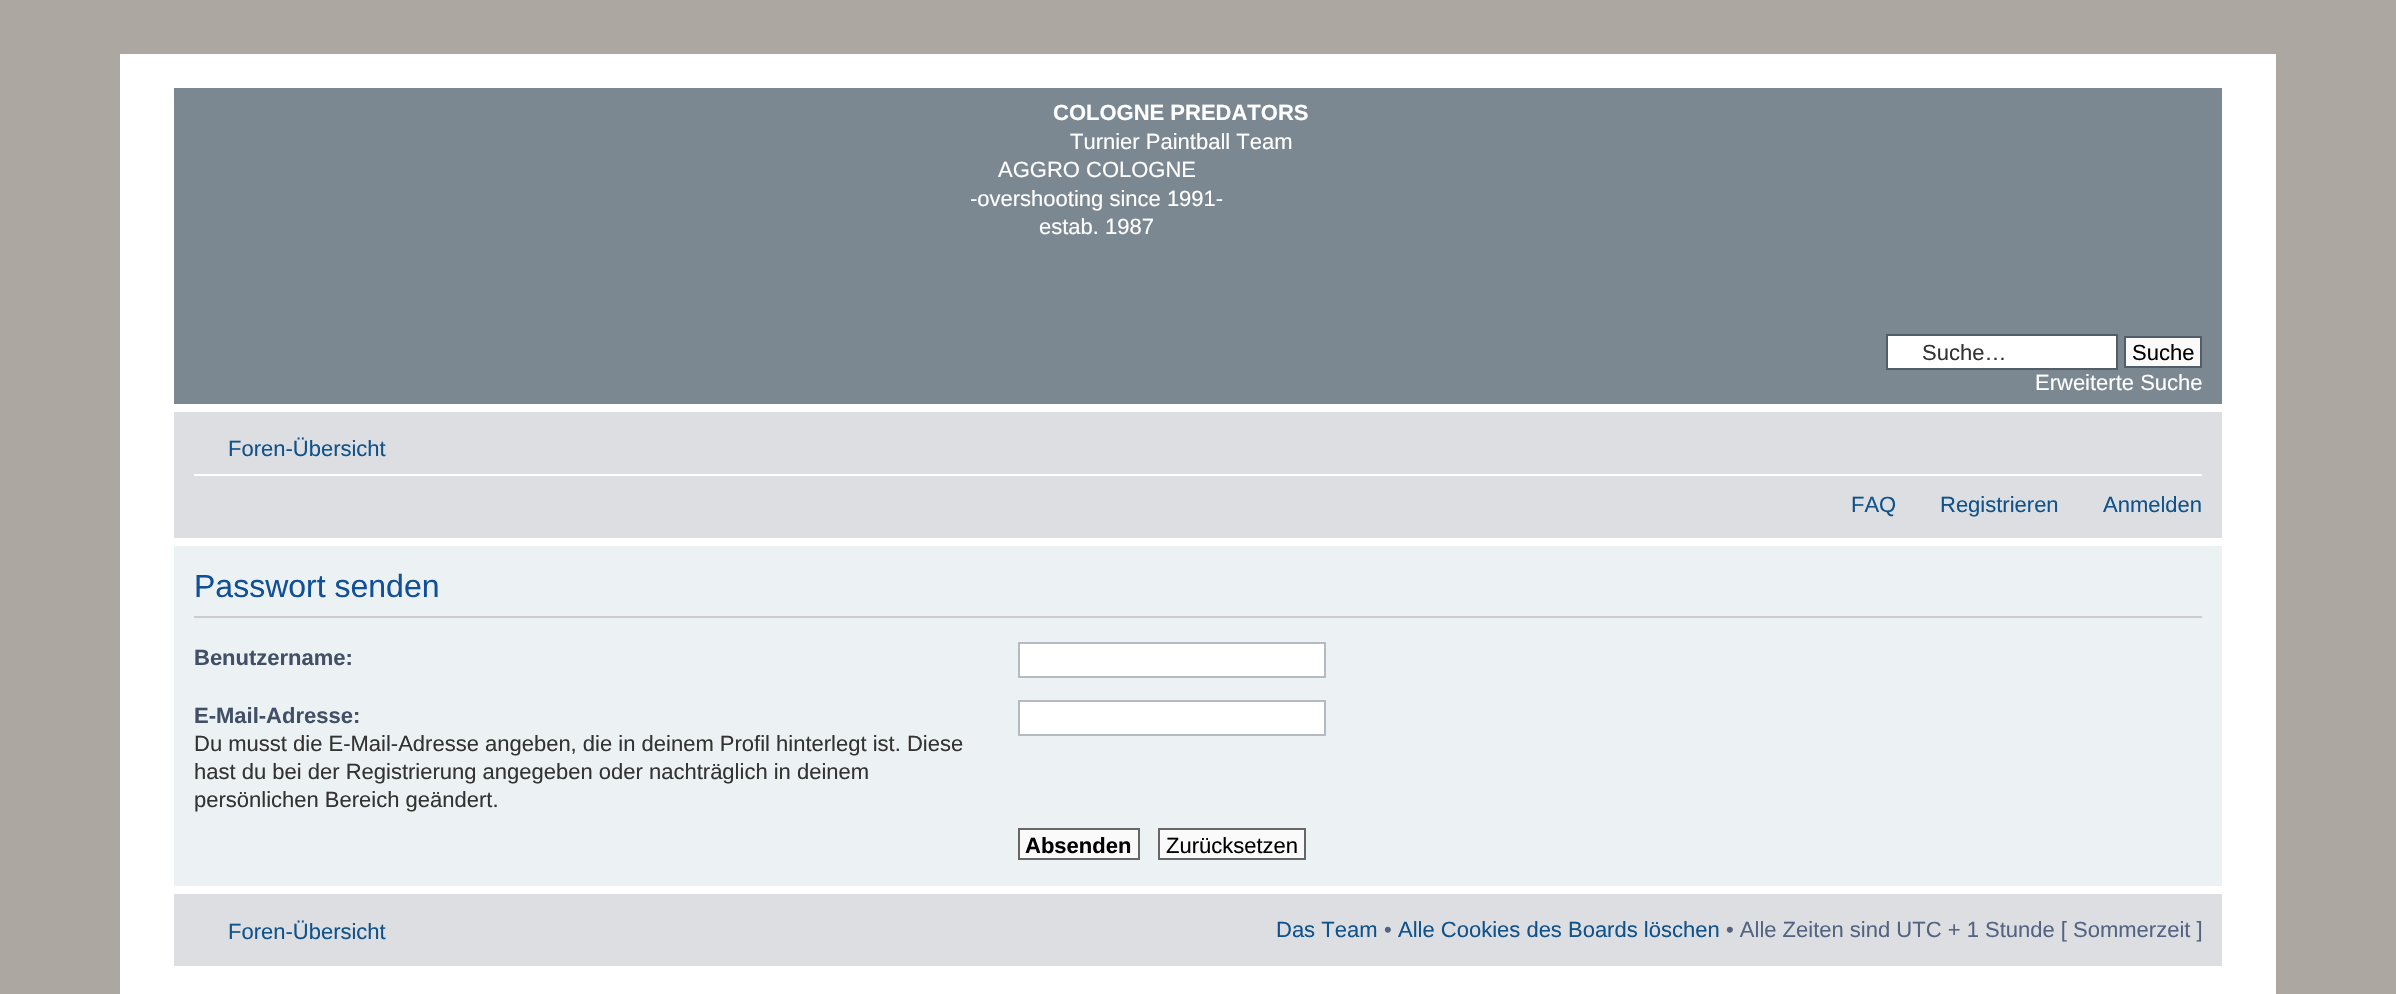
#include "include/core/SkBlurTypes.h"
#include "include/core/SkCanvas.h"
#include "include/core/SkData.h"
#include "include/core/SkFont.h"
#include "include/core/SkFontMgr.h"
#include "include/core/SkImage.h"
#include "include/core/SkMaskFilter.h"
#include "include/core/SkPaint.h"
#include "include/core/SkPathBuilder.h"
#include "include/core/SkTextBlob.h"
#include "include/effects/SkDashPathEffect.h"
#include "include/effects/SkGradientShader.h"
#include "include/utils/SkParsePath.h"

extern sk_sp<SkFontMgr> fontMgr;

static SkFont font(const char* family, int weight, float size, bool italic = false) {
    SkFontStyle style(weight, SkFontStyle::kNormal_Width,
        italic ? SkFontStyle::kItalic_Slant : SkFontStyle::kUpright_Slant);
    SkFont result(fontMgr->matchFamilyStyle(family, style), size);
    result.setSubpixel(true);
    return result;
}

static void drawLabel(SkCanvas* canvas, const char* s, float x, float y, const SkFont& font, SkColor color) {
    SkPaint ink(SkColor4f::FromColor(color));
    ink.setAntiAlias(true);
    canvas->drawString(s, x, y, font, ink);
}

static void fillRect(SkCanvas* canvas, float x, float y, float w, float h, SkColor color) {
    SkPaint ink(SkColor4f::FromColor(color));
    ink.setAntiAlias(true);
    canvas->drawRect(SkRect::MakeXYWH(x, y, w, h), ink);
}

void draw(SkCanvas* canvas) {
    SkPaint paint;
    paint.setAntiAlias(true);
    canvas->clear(0xFFACA8A1);
    fillRect(canvas, 120, 54, 2156, 940, 0xFFFFFFFF);
    fillRect(canvas, 174, 88, 2048, 316, 0xFF7C8891);
    SkFont font1 = font("Liberation Sans", 700, 22);
    drawLabel(canvas, "COLOGNE PREDATORS", 1053, 120, font1, 0xFFFFFFFF);
    SkFont font2 = font("Liberation Sans", 400, 22);
    drawLabel(canvas, "Turnier Paintball Team", 1070, 149, font2, 0xFFFFFFFF);
    drawLabel(canvas, "AGGRO COLOGNE", 998, 177, font2, 0xFFFFFFFF);
    drawLabel(canvas, "-overshooting since 1991-", 970, 206, font2, 0xFFFFFFFF);
    drawLabel(canvas, "estab. 1987", 1039, 234, font2, 0xFFFFFFFF);
    paint.setColor(0xFFFFFFFF);
    canvas->drawRect(SkRect::MakeXYWH(1887, 335, 230, 34), paint);
    paint.setStroke(true);
    paint.setStrokeWidth(2);
    paint.setColor(0xFF525E67);
    canvas->drawRect(SkRect::MakeXYWH(1887, 335, 230, 34), paint);
    drawLabel(canvas, "Suche…", 1922, 360, font2, 0xFF333333);
    paint.setStroke(false);
    paint.setColor(0xFFFAFAFA);
    canvas->drawRect(SkRect::MakeXYWH(2125, 337, 76, 30), paint);
    paint.setStroke(true);
    paint.setColor(0xFF525E67);
    canvas->drawRect(SkRect::MakeXYWH(2125, 337, 76, 30), paint);
    drawLabel(canvas, "Suche", 2132, 360, font2, 0xFF000000);
    drawLabel(canvas, "Erweiterte Suche", 2035, 390, font2, 0xFFFFFFFF);
    fillRect(canvas, 174, 412, 2048, 126, 0xFFDCDEE2);
    fillRect(canvas, 194, 474, 2008, 2, 0xFFFFFFFF);
    drawLabel(canvas, "Foren-Übersicht", 228, 456, font2, 0xFF105289);
    drawLabel(canvas, "FAQ", 1851, 512, font2, 0xFF105289);
    drawLabel(canvas, "Registrieren", 1940, 512, font2, 0xFF105289);
    drawLabel(canvas, "Anmelden", 2103, 512, font2, 0xFF105289);
    fillRect(canvas, 174, 546, 2048, 340, 0xFFECF1F3);
    fillRect(canvas, 194, 616, 2008, 2, 0xFFCCCCCC);
    SkFont font3 = font("Liberation Sans", 400, 32);
    drawLabel(canvas, "Passwort senden", 194, 597, font3, 0xFF115098);
    drawLabel(canvas, "Benutzername:", 194, 665, font1, 0xFF425067);
    paint.setStroke(false);
    paint.setColor(0xFFFFFFFF);
    canvas->drawRect(SkRect::MakeXYWH(1019, 643, 306, 34), paint);
    paint.setStroke(true);
    paint.setColor(0xFFB4BAC0);
    canvas->drawRect(SkRect::MakeXYWH(1019, 643, 306, 34), paint);
    drawLabel(canvas, "E-Mail-Adresse:", 194, 723, font1, 0xFF425067);
    drawLabel(canvas, "Du musst die E-Mail-Adresse angeben, die in deinem Profil hinterlegt ist. Diese", 194, 751, font2, 0xFF333333);
    drawLabel(canvas, "hast du bei der Registrierung angegeben oder nachträglich in deinem", 194, 779, font2, 0xFF333333);
    drawLabel(canvas, "persönlichen Bereich geändert.", 194, 807, font2, 0xFF333333);
    paint.setStroke(false);
    paint.setColor(0xFFFFFFFF);
    canvas->drawRect(SkRect::MakeXYWH(1019, 701, 306, 34), paint);
    paint.setStroke(true);
    paint.setColor(0xFFB4BAC0);
    canvas->drawRect(SkRect::MakeXYWH(1019, 701, 306, 34), paint);
    paint.setStroke(false);
    paint.setColor(0xFFFAFAFA);
    canvas->drawRect(SkRect::MakeXYWH(1019, 829, 120, 30), paint);
    paint.setStroke(true);
    paint.setColor(0xFF666666);
    canvas->drawRect(SkRect::MakeXYWH(1019, 829, 120, 30), paint);
    drawLabel(canvas, "Absenden", 1025, 853, font1, 0xFF000000);
    paint.setStroke(false);
    paint.setColor(0xFFFAFAFA);
    canvas->drawRect(SkRect::MakeXYWH(1159, 829, 146, 30), paint);
    paint.setStroke(true);
    paint.setColor(0xFF666666);
    canvas->drawRect(SkRect::MakeXYWH(1159, 829, 146, 30), paint);
    drawLabel(canvas, "Zurücksetzen", 1166, 853, font2, 0xFF000000);
    fillRect(canvas, 174, 894, 2048, 72, 0xFFDCDEE2);
    drawLabel(canvas, "Foren-Übersicht", 228, 939, font2, 0xFF105289);
    drawLabel(canvas, "Das Team", 1276, 937, font2, 0xFF105289);
    drawLabel(canvas, "•", 1384, 937, font2, 0xFF536482);
    drawLabel(canvas, "Alle Cookies des Boards löschen", 1398, 937, font2, 0xFF105289);
    drawLabel(canvas, "• Alle Zeiten sind UTC + 1 Stunde [ Sommerzeit ]", 1726, 937, font2, 0xFF536482);
}
